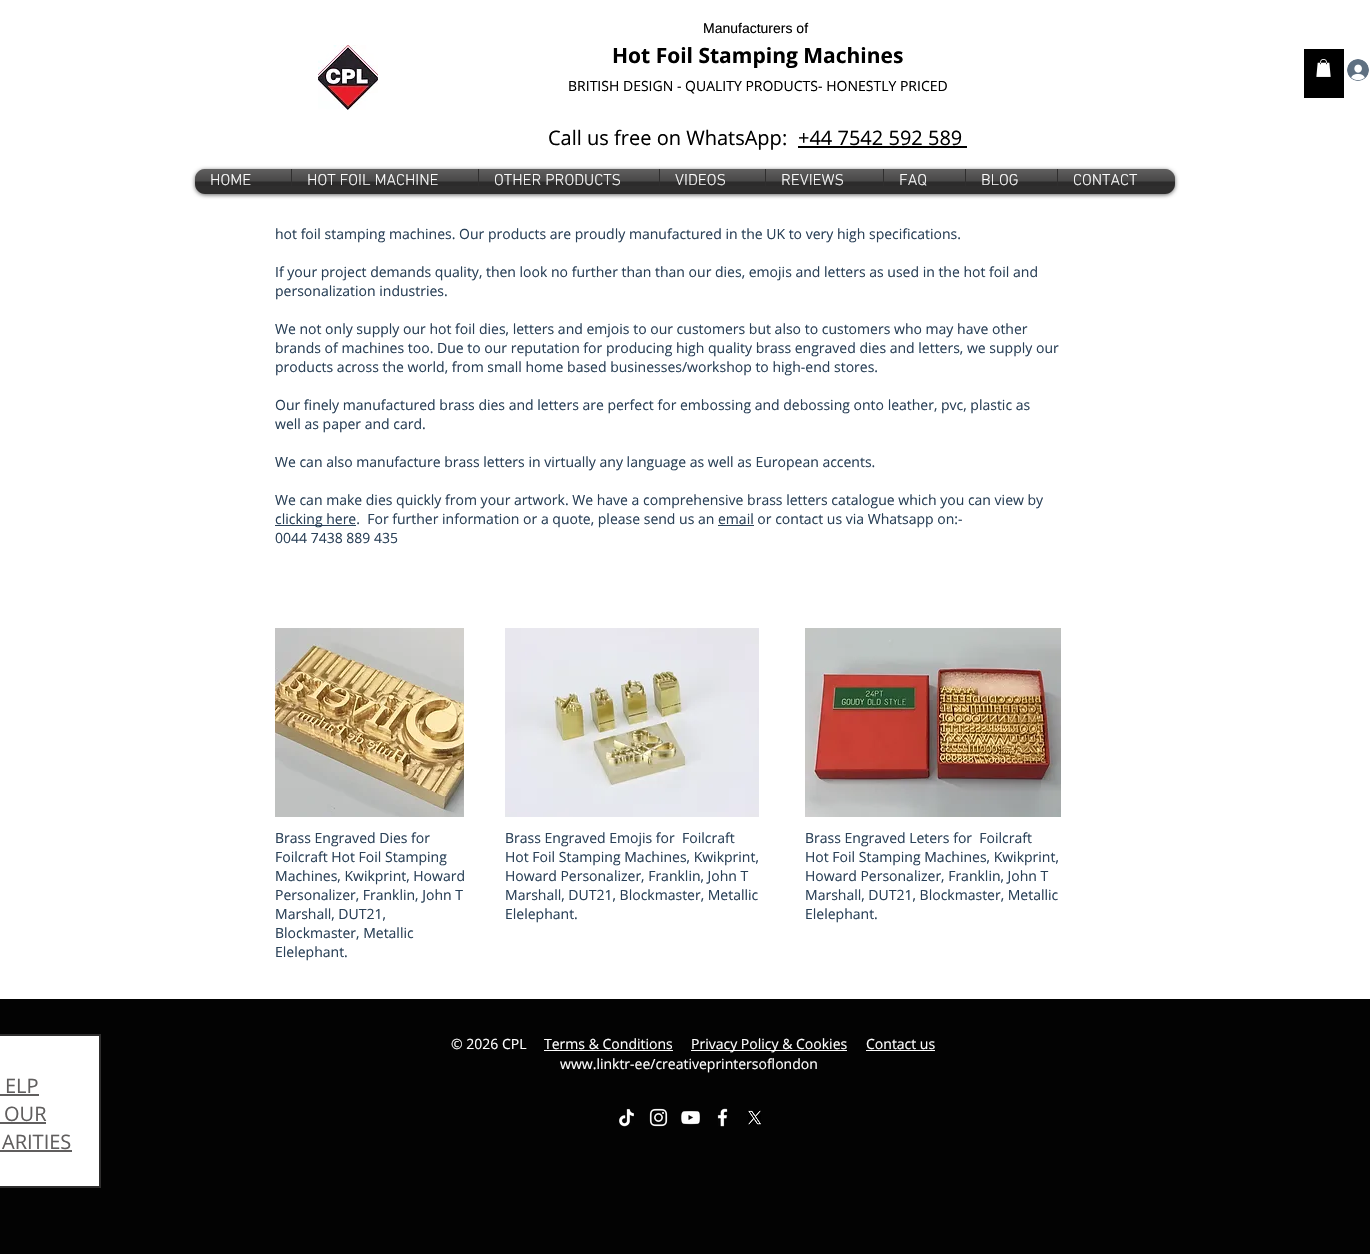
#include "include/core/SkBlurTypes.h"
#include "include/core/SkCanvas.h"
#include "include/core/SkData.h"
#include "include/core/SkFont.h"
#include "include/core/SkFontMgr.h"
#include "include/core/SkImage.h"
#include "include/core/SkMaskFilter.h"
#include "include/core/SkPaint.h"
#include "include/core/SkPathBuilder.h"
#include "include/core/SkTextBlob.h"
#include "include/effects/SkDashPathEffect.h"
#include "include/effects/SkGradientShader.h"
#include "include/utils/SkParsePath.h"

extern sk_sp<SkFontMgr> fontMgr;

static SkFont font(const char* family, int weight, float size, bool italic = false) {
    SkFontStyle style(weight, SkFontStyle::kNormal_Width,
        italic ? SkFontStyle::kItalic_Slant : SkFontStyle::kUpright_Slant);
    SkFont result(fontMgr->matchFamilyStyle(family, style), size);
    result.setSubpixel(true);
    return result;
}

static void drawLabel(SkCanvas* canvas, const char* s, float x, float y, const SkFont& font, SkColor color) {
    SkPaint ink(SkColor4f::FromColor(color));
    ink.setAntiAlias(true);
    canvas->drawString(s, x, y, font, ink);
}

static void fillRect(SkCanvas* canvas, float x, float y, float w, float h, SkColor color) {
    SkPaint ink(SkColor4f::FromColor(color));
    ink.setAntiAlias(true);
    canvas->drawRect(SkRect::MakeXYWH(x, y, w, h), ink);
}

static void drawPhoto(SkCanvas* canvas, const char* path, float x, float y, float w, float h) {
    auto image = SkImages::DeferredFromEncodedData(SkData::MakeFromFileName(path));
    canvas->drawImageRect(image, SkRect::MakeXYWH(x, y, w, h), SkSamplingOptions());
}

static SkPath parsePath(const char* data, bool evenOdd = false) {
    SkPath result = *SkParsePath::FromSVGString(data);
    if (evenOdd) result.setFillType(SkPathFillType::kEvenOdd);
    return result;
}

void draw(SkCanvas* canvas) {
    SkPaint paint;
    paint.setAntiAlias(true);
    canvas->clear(0xFFFFFFFF);
    drawPhoto(canvas, "assets/img1.png", 318, 45, 60, 65);
    SkFont font1 = font("Liberation Sans", 400, 14);
    drawLabel(canvas, "Manufacturers of", 703, 33, font1, 0xFF000000);
    SkFont font2 = font("Open Sans", 700, 21);
    drawLabel(canvas, "Hot Foil Stamping Machines", 612, 63, font2, 0xFF000000);
    SkFont font3 = font("Open Sans", 400, 14);
    drawLabel(canvas, "BRITISH DESIGN - QUALITY PRODUCTS- HONESTLY PRICED", 568, 91, font3, 0xFF000000);
    SkFont font4 = font("Open Sans", 400, 20);
    drawLabel(canvas, "Call us free on WhatsApp:", 548, 145, font4, 0xFF000000);
    drawLabel(canvas, "+44 7542 592 589", 798, 145, font4, 0xFF000000);
    fillRect(canvas, 798, 146, 169, 2, 0xFF000000);
    drawPhoto(canvas, "assets/img2.png", 1347, 59, 22, 22);
    paint.setColor(0x99000000);
    paint.setMaskFilter(SkMaskFilter::MakeBlur(kNormal_SkBlurStyle, 2));
    canvas->drawRoundRect(SkRect::MakeXYWH(195, 170, 980, 25), 10, 10, paint);
    paint.setMaskFilter(nullptr);
    drawPhoto(canvas, "assets/img3.png", 195, 169, 980, 10);
    paint.setColor(0xFF2F2E2E);
    canvas->drawPath(parsePath("M205 169H291V194H205C199.5 194 195 189.5 195 184V179C195 173.5 199.5 169 205 169Z"), paint);
    SkFont font5 = font("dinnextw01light", 300, 16);
    drawLabel(canvas, "HOME", 210, 185, font5, 0xFFFFFFFF);
    drawPhoto(canvas, "assets/img4.png", 195, 169, 96, 17);
    fillRect(canvas, 291, 169, 766, 25, 0xFF2F2E2E);
    drawLabel(canvas, "HOT FOIL MACHINE", 307, 185, font5, 0xFFFFFFFF);
    drawPhoto(canvas, "assets/img5.png", 292, 169, 186, 17);
    drawLabel(canvas, "OTHER PRODUCTS", 494, 185, font5, 0xFFFFFFFF);
    drawPhoto(canvas, "assets/img6.png", 479, 169, 180, 17);
    drawLabel(canvas, "VIDEOS", 675, 185, font5, 0xFFFFFFFF);
    drawPhoto(canvas, "assets/img7.png", 660, 169, 105, 17);
    drawLabel(canvas, "REVIEWS", 781, 185, font5, 0xFFFFFFFF);
    drawPhoto(canvas, "assets/img8.png", 766, 169, 117, 17);
    drawLabel(canvas, "FAQ", 899, 185, font5, 0xFFFFFFFF);
    drawPhoto(canvas, "assets/img9.png", 884, 169, 81, 17);
    drawLabel(canvas, "BLOG", 981, 185, font5, 0xFFFFFFFF);
    drawPhoto(canvas, "assets/img10.png", 966, 169, 91, 17);
    canvas->drawPath(parsePath("M1057 169H1165C1170.5 169 1175 173.5 1175 179V184C1175 189.5 1170.5 194 1165 194H1057Z"), paint);
    drawLabel(canvas, "CONTACT", 1073, 185, font5, 0xFFFFFFFF);
    drawPhoto(canvas, "assets/img11.png", 1058, 169, 117, 17);
    fillRect(canvas, 1304, 49, 40, 49, 0xFF000000);
    drawPhoto(canvas, "assets/img12.png", 1316, 59, 15, 18);
    drawLabel(canvas, "hot foil stamping machines. Our products are proudly manufactured in the UK to very high specifications.", 275, 239, font3, 0xFF294057);
    drawLabel(canvas, "If your project demands quality, then look no further than than our dies, emojis and letters as used in the hot foil and", 275, 277, font3, 0xFF294057);
    drawLabel(canvas, "personalization industries.", 275, 296, font3, 0xFF294057);
    drawLabel(canvas, "We not only supply our hot foil dies, letters and emjois to our customers but also to customers who may have other", 275, 334, font3, 0xFF294057);
    drawLabel(canvas, "brands of machines too. Due to our reputation for producing high quality brass engraved dies and letters, we supply our", 275, 353, font3, 0xFF294057);
    drawLabel(canvas, "products across the world, from small home based businesses/workshop to high-end stores.", 275, 372, font3, 0xFF294057);
    drawLabel(canvas, "Our finely manufactured brass dies and letters are perfect for embossing and debossing onto leather, pvc, plastic as", 275, 410, font3, 0xFF294057);
    drawLabel(canvas, "well as paper and card.", 275, 429, font3, 0xFF294057);
    drawLabel(canvas, "We can also manufacture brass letters in virtually any language as well as European accents.", 275, 467, font3, 0xFF294057);
    drawLabel(canvas, "We can make dies quickly from your artwork. We have a comprehensive brass letters catalogue which you can view by", 275, 505, font3, 0xFF294057);
    fillRect(canvas, 275, 525, 81, 1, 0xFF294057);
    drawLabel(canvas, "clicking here.  For further information or a quote, please send us an email or contact us via Whatsapp on:-", 275, 524, font3, 0xFF294057);
    fillRect(canvas, 718, 525, 36, 1, 0xFF294057);
    drawLabel(canvas, "0044 7438 889 435", 275, 543, font3, 0xFF294057);
    drawPhoto(canvas, "assets/img13.png", 275, 628, 189, 189);
    drawPhoto(canvas, "assets/img14.png", 505, 628, 254, 189);
    drawPhoto(canvas, "assets/img15.png", 805, 628, 256, 189);
    drawLabel(canvas, "Brass Engraved Dies for", 275, 843, font3, 0xFF294057);
    drawLabel(canvas, "Foilcraft Hot Foil Stamping", 275, 862, font3, 0xFF294057);
    drawLabel(canvas, "Machines, Kwikprint, Howard", 275, 881, font3, 0xFF294057);
    drawLabel(canvas, "Personalizer, Franklin, John T", 275, 900, font3, 0xFF294057);
    drawLabel(canvas, "Marshall, DUT21,", 275, 919, font3, 0xFF294057);
    drawLabel(canvas, "Blockmaster, Metallic", 275, 938, font3, 0xFF294057);
    drawLabel(canvas, "Elelephant.", 275, 957, font3, 0xFF294057);
    drawLabel(canvas, "Brass Engraved Emojis for  Foilcraft", 505, 843, font3, 0xFF294057);
    drawLabel(canvas, "Hot Foil Stamping Machines, Kwikprint,", 505, 862, font3, 0xFF294057);
    drawLabel(canvas, "Howard Personalizer, Franklin, John T", 505, 881, font3, 0xFF294057);
    drawLabel(canvas, "Marshall, DUT21, Blockmaster, Metallic", 505, 900, font3, 0xFF294057);
    drawLabel(canvas, "Elelephant.", 505, 919, font3, 0xFF294057);
    drawLabel(canvas, "Brass Engraved Leters for  Foilcraft", 805, 843, font3, 0xFF294057);
    drawLabel(canvas, "Hot Foil Stamping Machines, Kwikprint,", 805, 862, font3, 0xFF294057);
    drawLabel(canvas, "Howard Personalizer, Franklin, John T", 805, 881, font3, 0xFF294057);
    drawLabel(canvas, "Marshall, DUT21, Blockmaster, Metallic", 805, 900, font3, 0xFF294057);
    drawLabel(canvas, "Elelephant.", 805, 919, font3, 0xFF294057);
    fillRect(canvas, 0, 999, 1370, 255, 0xFF030303);
    drawLabel(canvas, "© 2026 CPL", 451, 1049, font3, 0xFFFFFFFF);
    drawLabel(canvas, "Terms & Conditions", 544, 1049, font3, 0xFFFFFFFF);
    fillRect(canvas, 544, 1050, 129, 1, 0xFFFFFFFF);
    fillRect(canvas, 691, 1050, 156, 1, 0xFFFFFFFF);
    drawLabel(canvas, "Privacy Policy & Cookies", 691, 1049, font3, 0xFFFFFFFF);
    drawLabel(canvas, "Contact us", 866, 1049, font3, 0xFFFFFFFF);
    fillRect(canvas, 866, 1050, 69, 1, 0xFFFFFFFF);
    drawLabel(canvas, "www.linktr-ee/creativeprintersoflondon", 560, 1069, font3, 0xFFFFFFFF);
    paint.setColor(0xFFFFFFFF);
    canvas->drawRect(SkRect::MakeXYWH(-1, 1035, 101, 152), paint);
    paint.setStroke(true);
    paint.setStrokeWidth(2);
    paint.setColor(0xFF2F2E2E);
    canvas->drawRect(SkRect::MakeXYWH(-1, 1035, 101, 152), paint);
    drawLabel(canvas, "ELP", 5, 1093, font4, 0xFF605E5E);
    fillRect(canvas, 0, 1094, 39, 2, 0xFF605E5E);
    drawLabel(canvas, "OUR", 4, 1121, font4, 0xFF605E5E);
    fillRect(canvas, 0, 1122, 46, 2, 0xFF605E5E);
    drawLabel(canvas, "ARITIES", 2, 1149, font4, 0xFF605E5E);
    fillRect(canvas, 0, 1150, 72, 2, 0xFF605E5E);
    drawPhoto(canvas, "assets/img16.png", 619, 1108, 15, 19);
    drawPhoto(canvas, "assets/img17.png", 649, 1108, 19, 19);
    drawPhoto(canvas, "assets/img18.png", 681, 1111, 19, 14);
    drawPhoto(canvas, "assets/img19.png", 717, 1108, 11, 19);
    drawPhoto(canvas, "assets/img20.png", 748, 1110, 13, 15);
}
